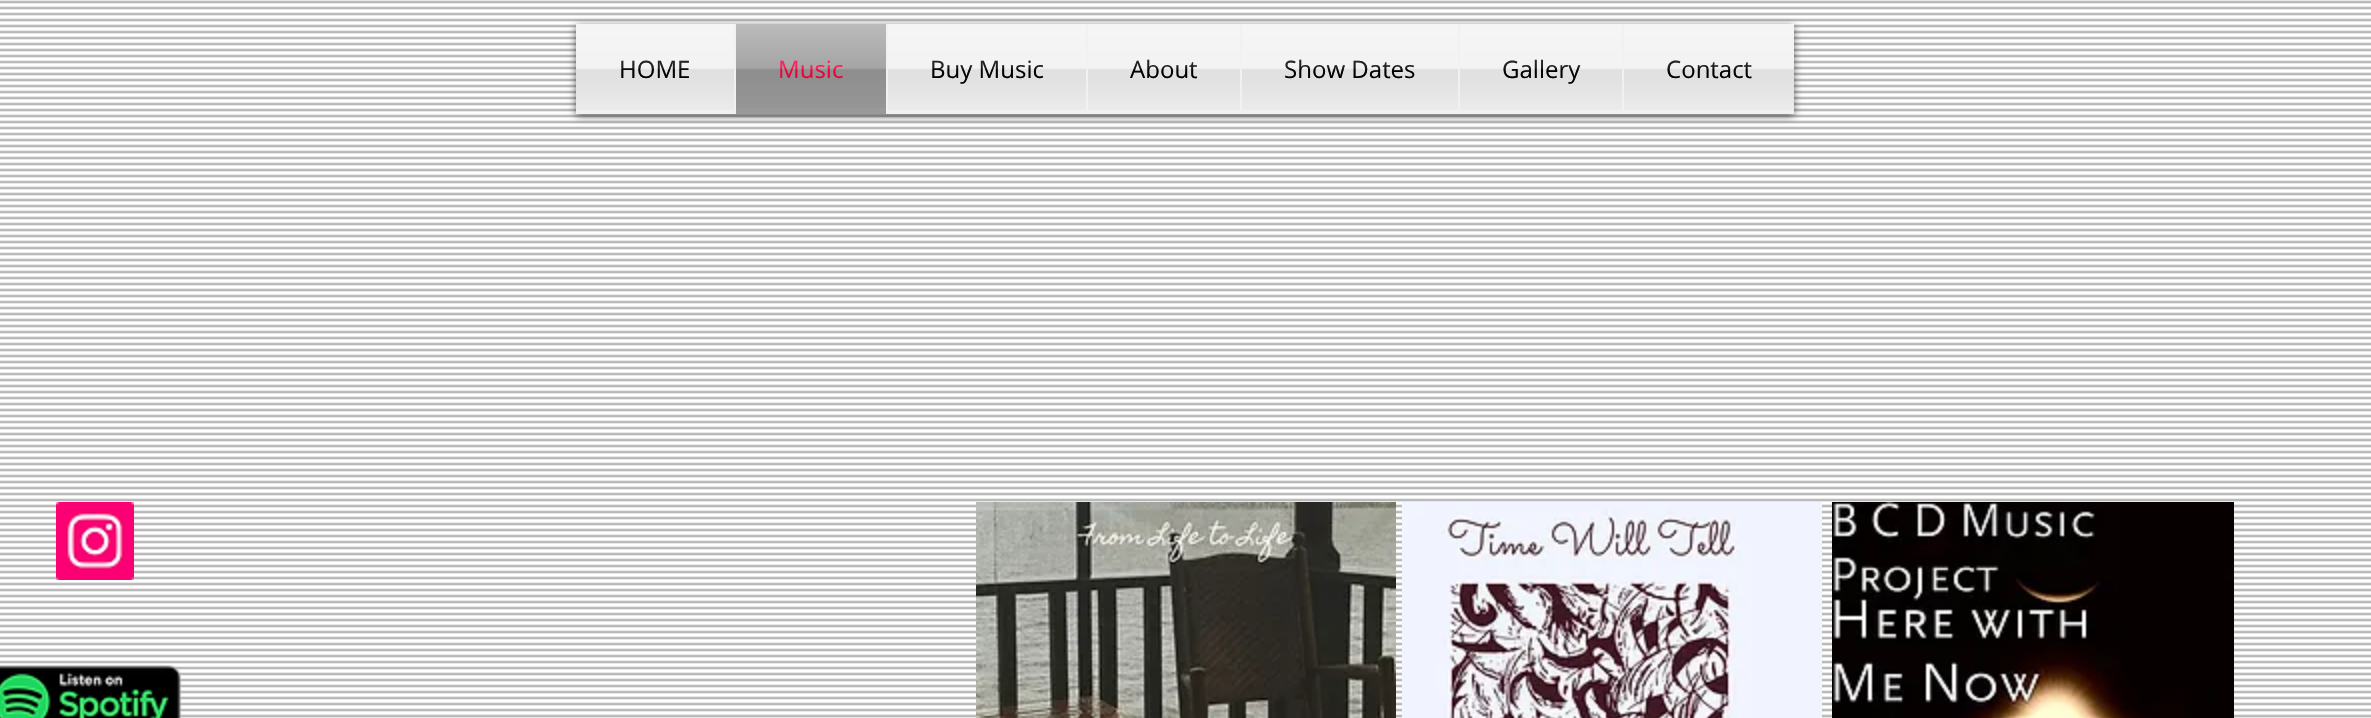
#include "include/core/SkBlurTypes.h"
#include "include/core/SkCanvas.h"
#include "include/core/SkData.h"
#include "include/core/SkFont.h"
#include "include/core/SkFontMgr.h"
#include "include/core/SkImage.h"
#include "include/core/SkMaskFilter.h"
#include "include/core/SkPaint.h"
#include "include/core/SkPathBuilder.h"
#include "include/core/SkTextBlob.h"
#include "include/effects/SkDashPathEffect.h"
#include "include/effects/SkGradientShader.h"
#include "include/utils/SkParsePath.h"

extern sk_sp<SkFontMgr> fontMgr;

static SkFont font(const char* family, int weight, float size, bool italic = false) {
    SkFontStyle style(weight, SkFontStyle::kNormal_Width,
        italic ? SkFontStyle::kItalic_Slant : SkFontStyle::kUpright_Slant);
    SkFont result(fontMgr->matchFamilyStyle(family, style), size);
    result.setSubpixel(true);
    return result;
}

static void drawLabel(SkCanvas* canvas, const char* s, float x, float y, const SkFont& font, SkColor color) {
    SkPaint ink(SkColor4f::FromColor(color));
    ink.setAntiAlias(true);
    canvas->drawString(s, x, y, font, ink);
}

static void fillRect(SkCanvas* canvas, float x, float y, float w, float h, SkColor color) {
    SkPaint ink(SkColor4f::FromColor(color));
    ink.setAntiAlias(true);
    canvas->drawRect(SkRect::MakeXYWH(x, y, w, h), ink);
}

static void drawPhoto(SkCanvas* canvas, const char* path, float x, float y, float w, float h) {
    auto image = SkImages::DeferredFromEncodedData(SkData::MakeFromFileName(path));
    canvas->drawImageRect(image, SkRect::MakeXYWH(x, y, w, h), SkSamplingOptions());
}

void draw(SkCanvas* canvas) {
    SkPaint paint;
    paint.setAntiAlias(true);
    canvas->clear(0xFFFFFFFF);
    drawPhoto(canvas, "assets/img1.png", 0, 0, 2371, 718);
    paint.setColor(0x99000000);
    paint.setMaskFilter(SkMaskFilter::MakeBlur(kNormal_SkBlurStyle, 4));
    canvas->drawRect(SkRect::MakeXYWH(576, 26, 1218, 90), paint);
    paint.setMaskFilter(nullptr);
    fillRect(canvas, 576, 24, 160, 90, 0xFFF1F1F1);
    SkFont font1 = font("Open Sans", 400, 24);
    drawLabel(canvas, "HOME", 619, 78, font1, 0xFF000000);
    drawPhoto(canvas, "assets/img2.png", 576, 24, 158, 86);
    fillRect(canvas, 736, 24, 150, 90, 0xFF999999);
    drawLabel(canvas, "Music", 778, 78, font1, 0xFFFF003F);
    drawPhoto(canvas, "assets/img3.png", 736, 24, 150, 84);
    fillRect(canvas, 886, 24, 908, 90, 0xFFF1F1F1);
    drawLabel(canvas, "Buy Music", 930, 78, font1, 0xFF000000);
    drawPhoto(canvas, "assets/img4.png", 888, 24, 198, 86);
    drawLabel(canvas, "About", 1130, 78, font1, 0xFF000000);
    drawPhoto(canvas, "assets/img5.png", 1088, 24, 152, 86);
    drawLabel(canvas, "Show Dates", 1284, 78, font1, 0xFF000000);
    drawPhoto(canvas, "assets/img6.png", 1242, 24, 216, 86);
    drawLabel(canvas, "Gallery", 1502, 78, font1, 0xFF000000);
    drawPhoto(canvas, "assets/img7.png", 1460, 24, 162, 86);
    drawLabel(canvas, "Contact", 1666, 78, font1, 0xFF000000);
    drawPhoto(canvas, "assets/img8.png", 1624, 24, 170, 86);
    drawPhoto(canvas, "assets/img9.png", 56, 502, 78, 78);
    drawPhoto(canvas, "assets/img10.png", 0, 664, 182, 54);
    drawPhoto(canvas, "assets/img11.png", 976, 502, 420, 216);
    drawPhoto(canvas, "assets/img12.png", 1402, 502, 420, 216);
    drawPhoto(canvas, "assets/img13.png", 1832, 502, 402, 216);
}
